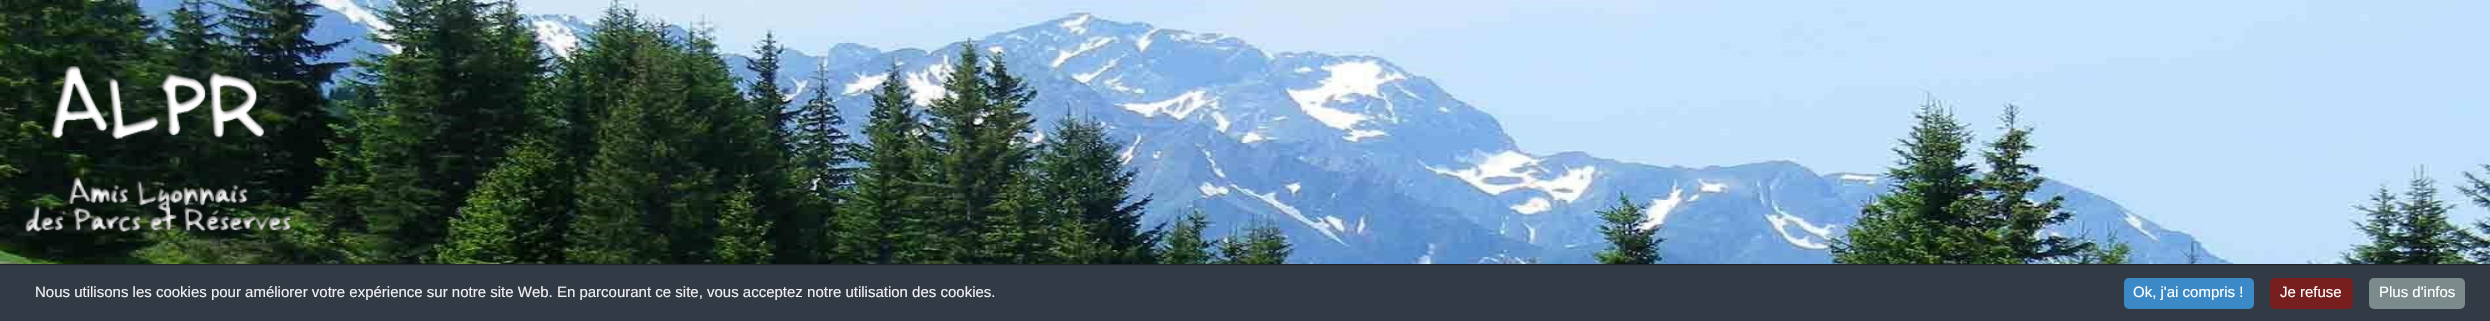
#include "include/core/SkBlurTypes.h"
#include "include/core/SkCanvas.h"
#include "include/core/SkData.h"
#include "include/core/SkFont.h"
#include "include/core/SkFontMgr.h"
#include "include/core/SkImage.h"
#include "include/core/SkMaskFilter.h"
#include "include/core/SkPaint.h"
#include "include/core/SkPathBuilder.h"
#include "include/core/SkTextBlob.h"
#include "include/effects/SkDashPathEffect.h"
#include "include/effects/SkGradientShader.h"
#include "include/utils/SkParsePath.h"

extern sk_sp<SkFontMgr> fontMgr;

static SkFont font(const char* family, int weight, float size, bool italic = false) {
    SkFontStyle style(weight, SkFontStyle::kNormal_Width,
        italic ? SkFontStyle::kItalic_Slant : SkFontStyle::kUpright_Slant);
    SkFont result(fontMgr->matchFamilyStyle(family, style), size);
    result.setSubpixel(true);
    return result;
}

static void drawLabel(SkCanvas* canvas, const char* s, float x, float y, const SkFont& font, SkColor color) {
    SkPaint ink(SkColor4f::FromColor(color));
    ink.setAntiAlias(true);
    canvas->drawString(s, x, y, font, ink);
}

static void fillRect(SkCanvas* canvas, float x, float y, float w, float h, SkColor color) {
    SkPaint ink(SkColor4f::FromColor(color));
    ink.setAntiAlias(true);
    canvas->drawRect(SkRect::MakeXYWH(x, y, w, h), ink);
}

static void fillRRect(SkCanvas* canvas, float x, float y, float w, float h, float radius, SkColor color) {
    SkPaint ink(SkColor4f::FromColor(color));
    ink.setAntiAlias(true);
    canvas->drawRoundRect(SkRect::MakeXYWH(x, y, w, h), radius, radius, ink);
}

static void drawPhoto(SkCanvas* canvas, const char* path, float x, float y, float w, float h) {
    auto image = SkImages::DeferredFromEncodedData(SkData::MakeFromFileName(path));
    canvas->drawImageRect(image, SkRect::MakeXYWH(x, y, w, h), SkSamplingOptions());
}

void draw(SkCanvas* canvas) {
    SkPaint paint;
    paint.setAntiAlias(true);
    canvas->clear(0xFFFFFFFF);
    drawPhoto(canvas, "assets/img1.png", 0, 0, 2490, 264);
    drawPhoto(canvas, "assets/img2.png", 25, 66, 267, 166);
    fillRect(canvas, 0, 265, 2490, 56, 0xFF323A45);
    fillRect(canvas, 0, 264, 2490, 1, 0xFF202226);
    SkFont font1 = font("Liberation Sans", 400, 15);
    drawLabel(canvas, "Nous utilisons les cookies pour améliorer votre expérience sur notre site Web. En parcourant ce site, vous acceptez notre utilisation des cookies.", 35, 297, font1, 0xFFF1F1F3);
    fillRRect(canvas, 2124, 278, 130, 31, 5, 0xFF3B89C7);
    drawLabel(canvas, "Ok, j'ai compris !", 2133, 297, font1, 0xFFFFFFFF);
    fillRRect(canvas, 2270, 278, 83, 31, 5, 0xFF771F1F);
    drawLabel(canvas, "Je refuse", 2280, 297, font1, 0xFFFFFFFF);
    fillRRect(canvas, 2369, 278, 96, 31, 5, 0xFF7B8A8B);
    drawLabel(canvas, "Plus d'infos", 2379, 297, font1, 0xFFFFFFFF);
}
